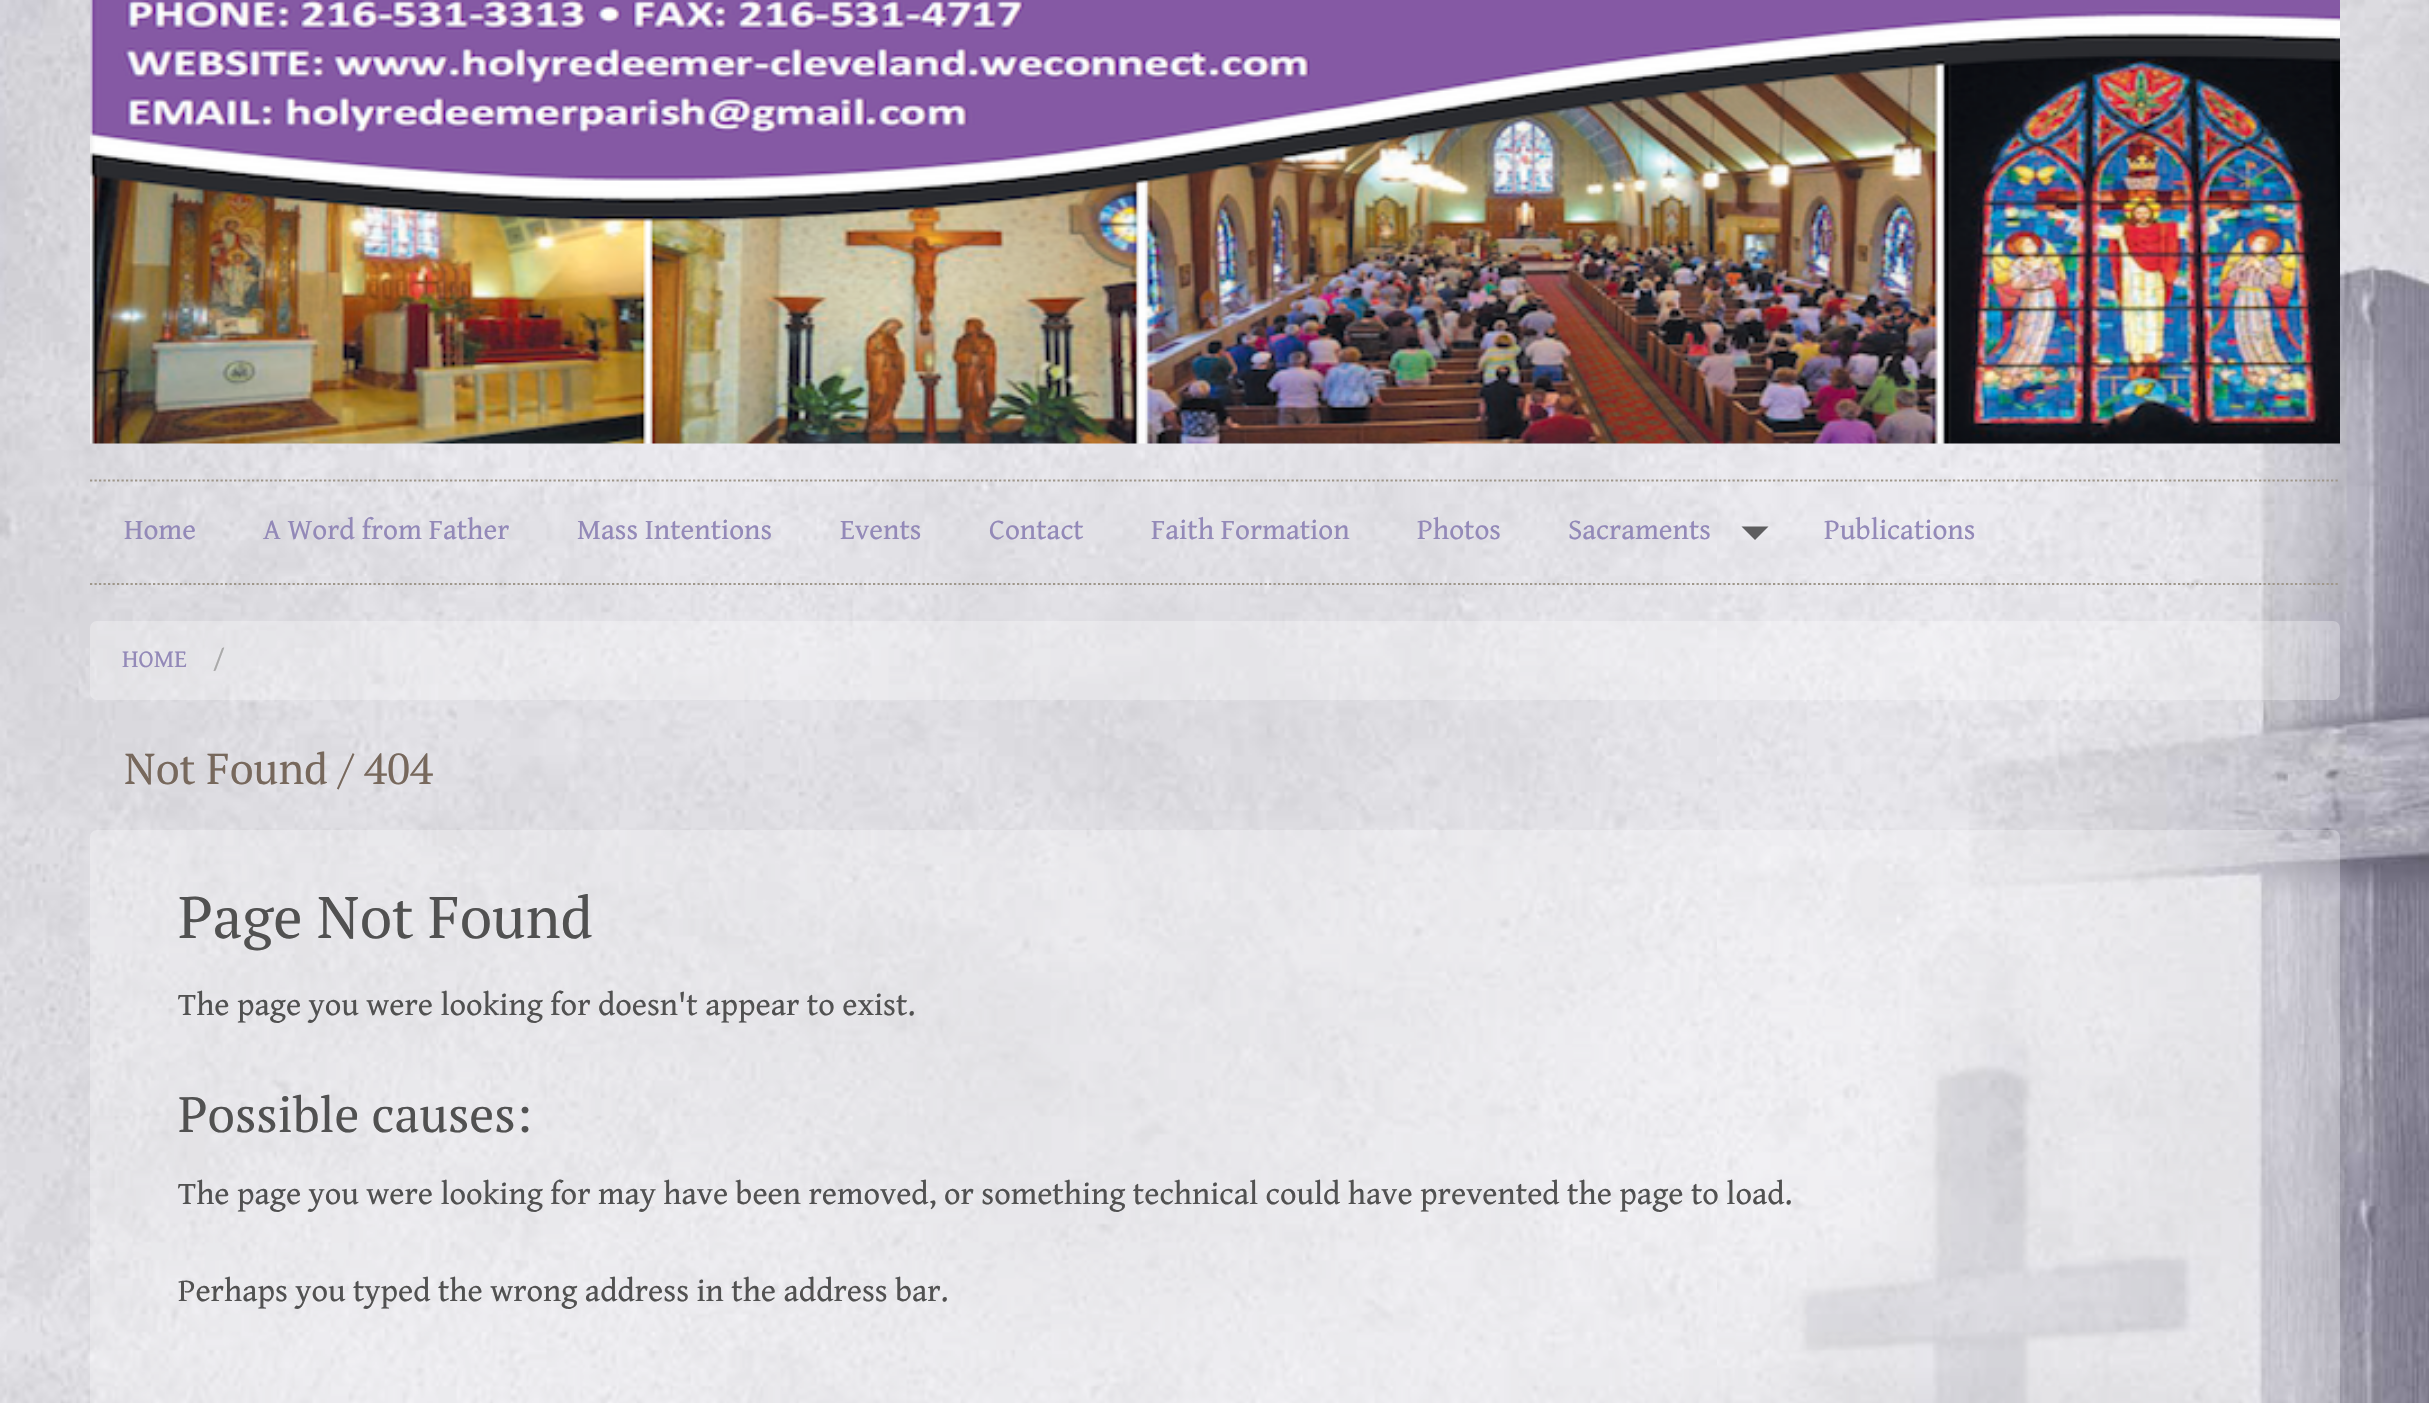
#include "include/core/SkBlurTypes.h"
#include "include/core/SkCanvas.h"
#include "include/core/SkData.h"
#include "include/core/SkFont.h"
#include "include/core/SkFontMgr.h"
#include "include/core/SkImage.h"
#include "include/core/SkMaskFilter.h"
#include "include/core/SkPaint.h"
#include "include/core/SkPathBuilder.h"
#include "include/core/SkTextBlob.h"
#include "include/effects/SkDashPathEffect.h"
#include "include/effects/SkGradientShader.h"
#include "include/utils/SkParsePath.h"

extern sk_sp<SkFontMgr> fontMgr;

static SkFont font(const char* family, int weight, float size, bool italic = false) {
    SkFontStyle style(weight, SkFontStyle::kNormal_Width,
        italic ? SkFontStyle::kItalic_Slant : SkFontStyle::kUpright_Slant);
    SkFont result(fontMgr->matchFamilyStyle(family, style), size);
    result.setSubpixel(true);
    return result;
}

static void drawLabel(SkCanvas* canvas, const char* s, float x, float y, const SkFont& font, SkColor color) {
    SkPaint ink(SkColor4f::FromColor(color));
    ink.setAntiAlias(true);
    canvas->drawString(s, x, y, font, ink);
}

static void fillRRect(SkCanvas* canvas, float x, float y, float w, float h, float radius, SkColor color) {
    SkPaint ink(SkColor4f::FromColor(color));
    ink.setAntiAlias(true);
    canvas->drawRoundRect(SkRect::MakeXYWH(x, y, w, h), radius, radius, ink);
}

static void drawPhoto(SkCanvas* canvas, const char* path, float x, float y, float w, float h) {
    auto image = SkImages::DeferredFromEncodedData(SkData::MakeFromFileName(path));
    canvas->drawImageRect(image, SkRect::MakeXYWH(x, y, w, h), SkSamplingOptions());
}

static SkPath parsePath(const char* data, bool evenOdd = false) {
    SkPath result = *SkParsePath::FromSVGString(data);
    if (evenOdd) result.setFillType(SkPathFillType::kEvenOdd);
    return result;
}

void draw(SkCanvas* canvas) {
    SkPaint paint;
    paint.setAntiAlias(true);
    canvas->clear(0xFFFFFFFF);
    drawPhoto(canvas, "assets/img1.png", 0, 0, 2429, 1403);
    drawPhoto(canvas, "assets/img2.png", 90, 0, 2250, 444);
    paint.setStroke(true);
    paint.setStrokeWidth(2.2f);
    paint.setColor(0xFF9E968A);
    paint.setPathEffect(SkDashPathEffect::Make({{2.25f, 2.25f}}, 0));
    canvas->drawPath(parsePath("M90 480.5H2340"), paint);
    paint.setPathEffect(nullptr);
    paint.setPathEffect(SkDashPathEffect::Make({{2.25f, 2.25f}}, 0));
    canvas->drawPath(parsePath("M90 584H2340"), paint);
    paint.setPathEffect(nullptr);
    SkFont font1 = font("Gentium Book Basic", 400, 29.25f);
    drawLabel(canvas, "Home", 124, 539, font1, 0xFF9389B8);
    drawLabel(canvas, "A Word from Father", 263, 539, font1, 0xFF9389B8);
    drawLabel(canvas, "Mass Intentions", 577, 539, font1, 0xFF9389B8);
    drawLabel(canvas, "Events", 840, 539, font1, 0xFF9389B8);
    drawLabel(canvas, "Contact", 989, 539, font1, 0xFF9389B8);
    drawLabel(canvas, "Faith Formation", 1151, 539, font1, 0xFF9389B8);
    drawLabel(canvas, "Photos", 1417, 539, font1, 0xFF9389B8);
    drawLabel(canvas, "Sacraments", 1568, 539, font1, 0xFF9389B8);
    paint.setStroke(false);
    paint.setColor(0x99000000);
    canvas->drawPath(parsePath("M1741.5 526.5H1768.5L1755 540Z"), paint);
    drawLabel(canvas, "Publications", 1824, 539, font1, 0xFF9389B8);
    fillRRect(canvas, 90, 621, 2250, 79, 7, 0x4DFFFFFF);
    SkFont font2 = font("Gentium Book Basic", 400, 25);
    drawLabel(canvas, "HOME", 122, 667, font2, 0xFF9389B8);
    drawLabel(canvas, "/", 213, 667, font2, 0xFFAAAAAA);
    SkFont font3 = font("PT Serif", 400, 43.25f);
    drawLabel(canvas, "Not Found / 404", 124, 784, font3, 0xFF77685C);
    fillRRect(canvas, 90, 830, 2250, 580, 7, 0x4DFFFFFF);
    SkFont font4 = font("PT Serif", 400, 58.5f);
    drawLabel(canvas, "Page Not Found", 178, 938, font4, 0xFF515151);
    SkFont font5 = font("Gentium Book Basic", 400, 32.4f);
    drawLabel(canvas, "The page you were looking for doesn't appear to exist.", 178, 1015, font5, 0xFF515151);
    SkFont font6 = font("PT Serif", 400, 49.5f);
    drawLabel(canvas, "Possible causes:", 178, 1132, font6, 0xFF515151);
    drawLabel(canvas, "The page you were looking for may have been removed, or something technical could have prevented the page to load.", 178, 1204, font5, 0xFF515151);
    drawLabel(canvas, "Perhaps you typed the wrong address in the address bar.", 178, 1301, font5, 0xFF515151);
}
